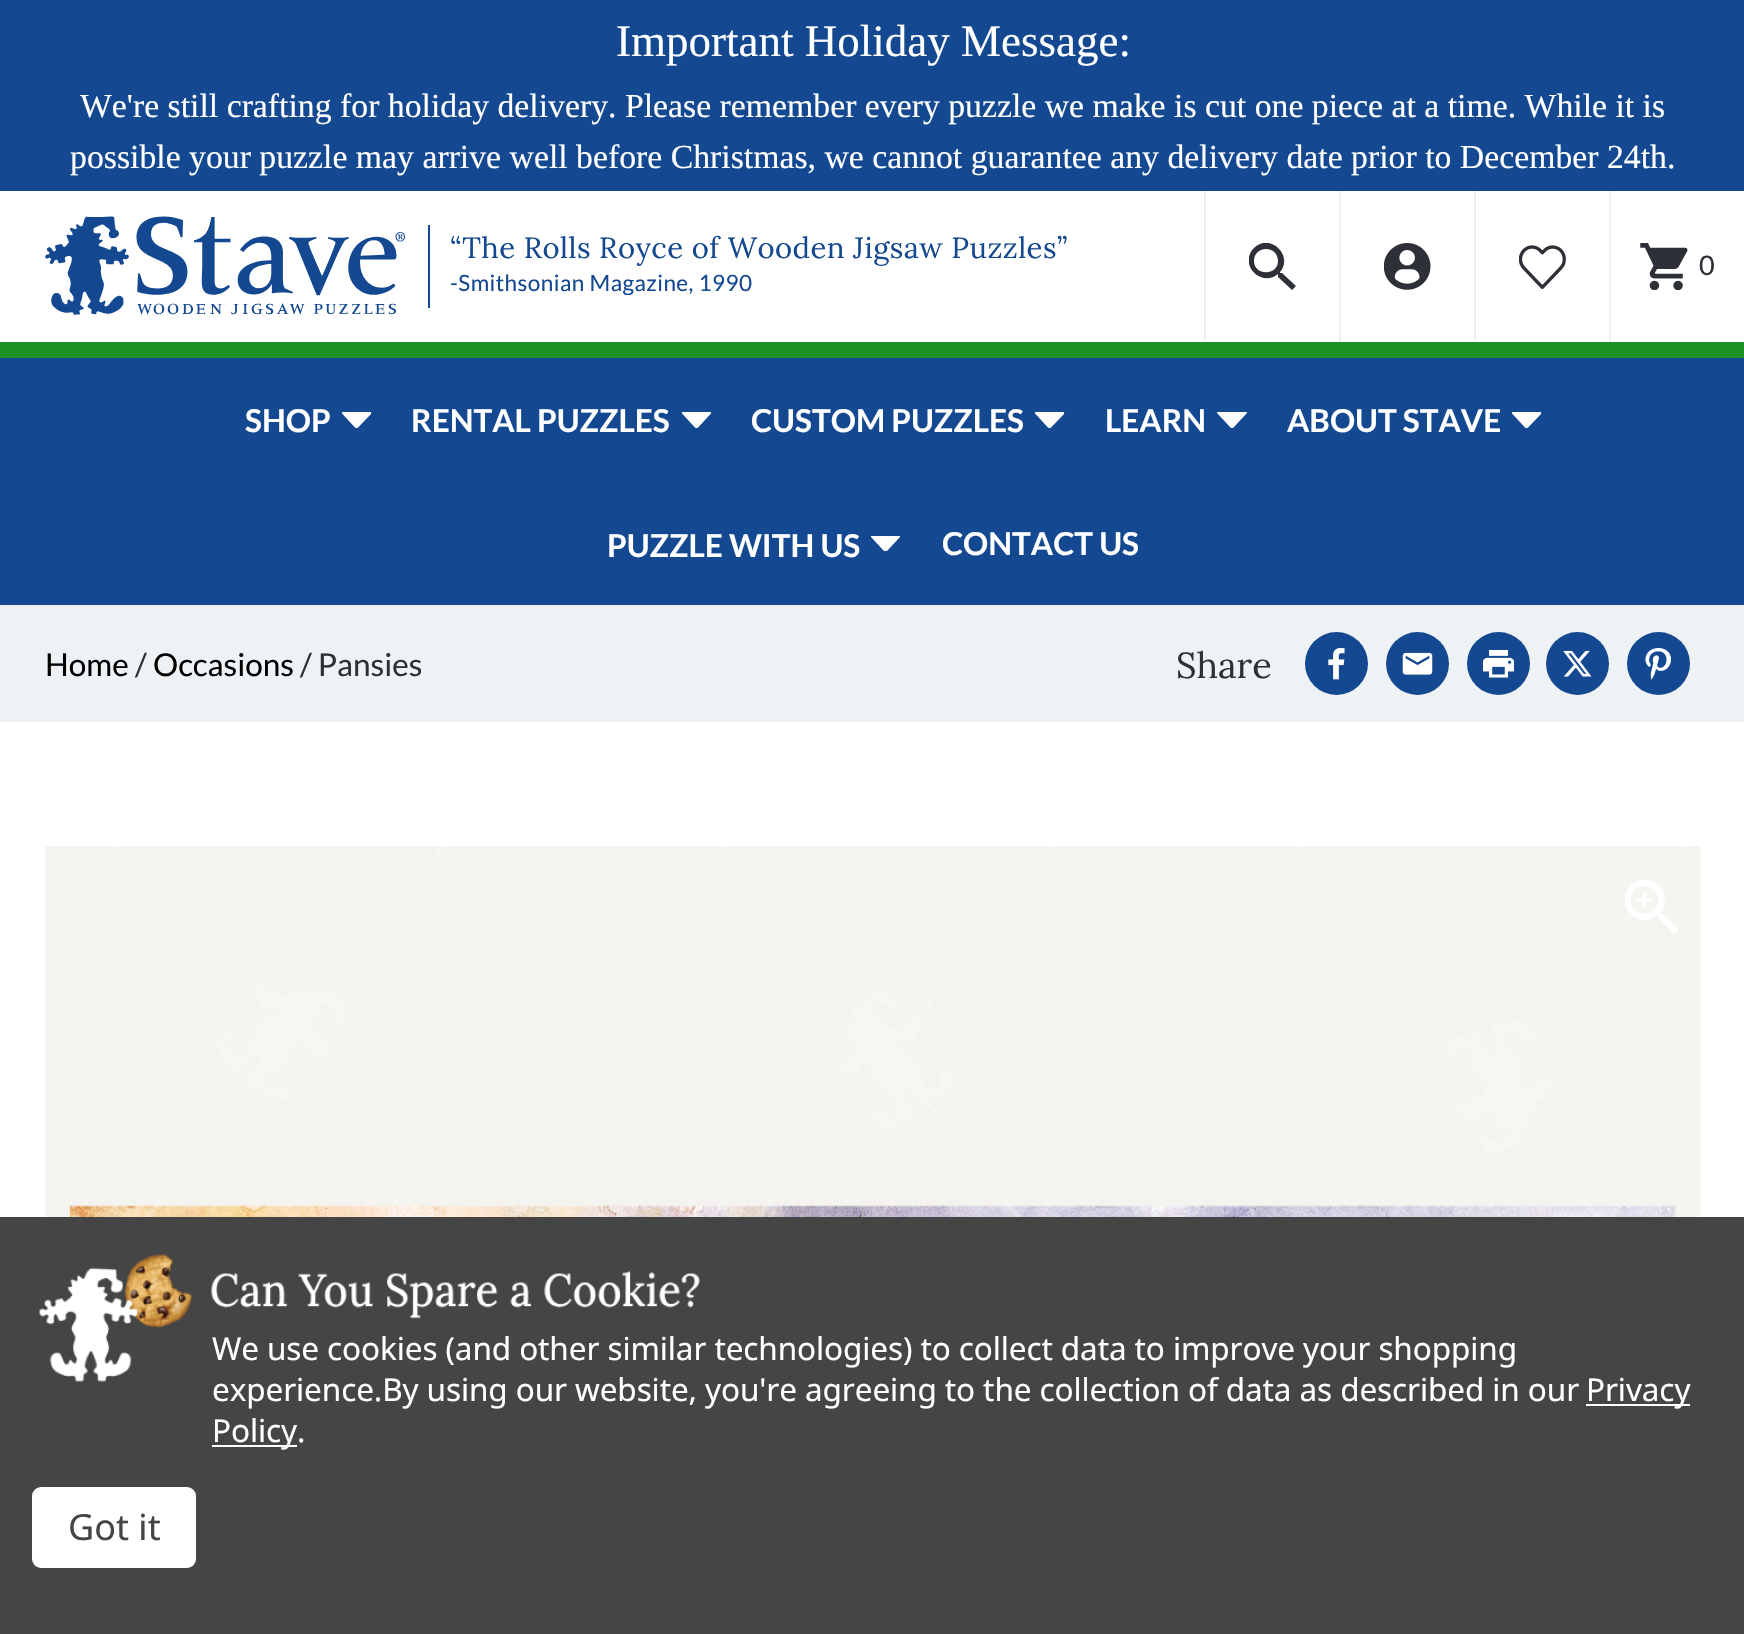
#include "include/core/SkBlurTypes.h"
#include "include/core/SkCanvas.h"
#include "include/core/SkData.h"
#include "include/core/SkFont.h"
#include "include/core/SkFontMgr.h"
#include "include/core/SkImage.h"
#include "include/core/SkMaskFilter.h"
#include "include/core/SkPaint.h"
#include "include/core/SkPathBuilder.h"
#include "include/core/SkTextBlob.h"
#include "include/effects/SkDashPathEffect.h"
#include "include/effects/SkGradientShader.h"
#include "include/utils/SkParsePath.h"

extern sk_sp<SkFontMgr> fontMgr;

static SkFont font(const char* family, int weight, float size, bool italic = false) {
    SkFontStyle style(weight, SkFontStyle::kNormal_Width,
        italic ? SkFontStyle::kItalic_Slant : SkFontStyle::kUpright_Slant);
    SkFont result(fontMgr->matchFamilyStyle(family, style), size);
    result.setSubpixel(true);
    return result;
}

static void drawLabel(SkCanvas* canvas, const char* s, float x, float y, const SkFont& font, SkColor color) {
    SkPaint ink(SkColor4f::FromColor(color));
    ink.setAntiAlias(true);
    canvas->drawString(s, x, y, font, ink);
}

static void drawTracked(SkCanvas* canvas, const char* s, float x, float y, const SkFont& font, const SkPaint& ink, float letter, float word) {
    std::vector<SkGlyphID> glyphs(font.countText(s, strlen(s), SkTextEncoding::kUTF8));
    std::vector<float> xs(glyphs.size());
    font.textToGlyphs(s, strlen(s), SkTextEncoding::kUTF8, glyphs);
    font.getXPos(glyphs, xs, x);
    float extra = 0;
    for (size_t i = 0; i < glyphs.size(); i++) {
        xs[i] += extra;
        extra += letter + word * (glyphs[i] == font.unicharToGlyph(' '));
    }
    canvas->drawTextBlob(SkTextBlob::MakeFromPosHGlyphs(glyphs, xs, y, font), 0, 0, ink);
}

static void fillRect(SkCanvas* canvas, float x, float y, float w, float h, SkColor color) {
    SkPaint ink(SkColor4f::FromColor(color));
    ink.setAntiAlias(true);
    canvas->drawRect(SkRect::MakeXYWH(x, y, w, h), ink);
}

static void fillRRect(SkCanvas* canvas, float x, float y, float w, float h, float radius, SkColor color) {
    SkPaint ink(SkColor4f::FromColor(color));
    ink.setAntiAlias(true);
    canvas->drawRoundRect(SkRect::MakeXYWH(x, y, w, h), radius, radius, ink);
}

static void drawPhoto(SkCanvas* canvas, const char* path, float x, float y, float w, float h) {
    auto image = SkImages::DeferredFromEncodedData(SkData::MakeFromFileName(path));
    canvas->drawImageRect(image, SkRect::MakeXYWH(x, y, w, h), SkSamplingOptions());
}

static SkPath parsePath(const char* data, bool evenOdd = false) {
    SkPath result = *SkParsePath::FromSVGString(data);
    if (evenOdd) result.setFillType(SkPathFillType::kEvenOdd);
    return result;
}

void draw(SkCanvas* canvas) {
    SkPaint paint;
    paint.setAntiAlias(true);
    canvas->clear(0xFFFFFFFF);
    fillRect(canvas, 0, 0, 1744, 191, 0xFF144991);
    SkFont font1 = font("Liberation Serif", 400, 45);
    drawLabel(canvas, "Important Holiday Message:", 616, 56, font1, 0xFFFFFFFF);
    SkFont font2 = font("Liberation Serif", 400, 33.75f);
    drawLabel(canvas, "We're still crafting for holiday delivery. Please remember every puzzle we make is cut one piece at a time. While it is", 80, 117, font2, 0xFFFFFFFF);
    drawLabel(canvas, "possible your puzzle may arrive well before Christmas, we cannot guarantee any delivery date prior to December 24th.", 70, 168, font2, 0xFFFFFFFF);
    fillRect(canvas, 0, 342, 1744, 16, 0xFF1B9126);
    fillRect(canvas, 1204, 191, 2, 151, 0xFFEFEFED);
    drawPhoto(canvas, "assets/img1.png", 45, 216, 360, 99);
    fillRect(canvas, 428, 225, 2, 83, 0xFF144991);
    SkFont font3 = font("Lora", 400, 29.25f);
    paint.setColor(0xFF144991);
    drawTracked(canvas, "“The Rolls Royce of Wooden Jigsaw Puzzles”", 450, 258, font3, paint, 0.45f, 0);
    SkFont font4 = font("Lato", 400, 22.5f);
    drawTracked(canvas, "-Smithsonian Magazine, 1990", 450, 291, font4, paint, 0.45f, 0);
    fillRect(canvas, 1339, 191, 2, 151, 0xFFEFEFED);
    canvas->save();
    canvas->clipRect(SkRect::MakeXYWH(1249, 243, 47, 47));
    paint.setColor(0xFF2E3037);
    canvas->drawPath(parsePath("M1296 286L1292 290L1278 277V275V274C1261 288 1238 264 1254 248C1270 232 1294 256 1280 272V273H1282ZM1278 261C1278 245 1254 245 1254 261C1254 276 1278 276 1278 261Z"), paint);
    canvas->restore();
    fillRect(canvas, 1474, 191, 2, 151, 0xFFEFEFED);
    drawPhoto(canvas, "assets/img2.png", 1384, 243, 47, 47);
    fillRect(canvas, 1609, 191, 2, 151, 0xFFEFEFED);
    drawPhoto(canvas, "assets/img3.png", 1519, 245, 47, 44);
    drawPhoto(canvas, "assets/img4.png", 1640, 243, 48, 47);
    SkFont font5 = font("Lato", 400, 27);
    drawLabel(canvas, "0", 1699, 275, font5, 0xFF2E3037);
    fillRect(canvas, 0, 358, 1744, 247, 0xFF144991);
    SkFont font6 = font("Lato", 700, 31.5f);
    drawLabel(canvas, "SHOP", 245, 432, font6, 0xFFFFFFFF);
    paint.setColor(0xFFFFFFFF);
    canvas->drawPath(parsePath("M342 412L356.5 427.5L371.5 412Z"), paint);
    canvas->save();
    canvas->clipRect(SkRect::MakeXYWH(342, 412, 29, 16));
    paint.setStroke(true);
    paint.setStrokeWidth(2.2f);
    canvas->drawPath(parsePath("M342 412L356.5 427.5L371.5 412Z"), paint);
    canvas->restore();
    drawLabel(canvas, "RENTAL PUZZLES", 411, 432, font6, 0xFFFFFFFF);
    paint.setStroke(false);
    canvas->drawPath(parsePath("M682 412L696.5 427.5L711 412Z"), paint);
    canvas->save();
    canvas->clipRect(SkRect::MakeXYWH(682, 412, 29, 16));
    paint.setStroke(true);
    canvas->drawPath(parsePath("M682 412L696.5 427.5L711 412Z"), paint);
    canvas->restore();
    drawLabel(canvas, "CUSTOM PUZZLES", 751, 432, font6, 0xFFFFFFFF);
    paint.setStroke(false);
    canvas->drawPath(parsePath("M1035 412L1049.5 427.5L1064.5 412Z"), paint);
    canvas->save();
    canvas->clipRect(SkRect::MakeXYWH(1035, 412, 29, 16));
    paint.setStroke(true);
    canvas->drawPath(parsePath("M1035 412L1049.5 427.5L1064.5 412Z"), paint);
    canvas->restore();
    drawLabel(canvas, "LEARN", 1105, 432, font6, 0xFFFFFFFF);
    paint.setStroke(false);
    canvas->drawPath(parsePath("M1217.5 412L1232 427.5L1246.5 412Z"), paint);
    canvas->save();
    canvas->clipRect(SkRect::MakeXYWH(1217, 412, 30, 16));
    paint.setStroke(true);
    canvas->drawPath(parsePath("M1217.5 412L1232 427.5L1246.5 412Z"), paint);
    canvas->restore();
    drawLabel(canvas, "ABOUT STAVE", 1287, 432, font6, 0xFFFFFFFF);
    paint.setStroke(false);
    canvas->drawPath(parsePath("M1512 412L1526.5 427.5L1541.5 412Z"), paint);
    canvas->save();
    canvas->clipRect(SkRect::MakeXYWH(1512, 412, 29, 16));
    paint.setStroke(true);
    canvas->drawPath(parsePath("M1512 412L1526.5 427.5L1541.5 412Z"), paint);
    canvas->restore();
    drawLabel(canvas, "PUZZLE WITH US", 607, 557, font6, 0xFFFFFFFF);
    canvas->save();
    canvas->clipRect(SkRect::MakeXYWH(871, 536, 29, 15));
    paint.setStroke(false);
    canvas->drawPath(parsePath("M871 535.5L885.5 551L900 535.5Z"), paint);
    paint.setStroke(true);
    canvas->drawPath(parsePath("M871 535.5L885.5 551L900 535.5Z"), paint);
    canvas->restore();
    drawLabel(canvas, "CONTACT US", 942, 555, font6, 0xFFFFFFFF);
    fillRect(canvas, 0, 605, 1744, 117, 0xFFEFF2F5);
    SkFont font7 = font("Lato", 400, 31.5f);
    drawLabel(canvas, "Home", 45, 676, font7, 0xFF010101);
    drawLabel(canvas, "/", 135, 676, font7, 0xFF2E3037);
    drawLabel(canvas, "Occasions", 153, 676, font7, 0xFF010101);
    drawLabel(canvas, "/ Pansies", 300, 676, font7, 0xFF2E3037);
    SkFont font8 = font("Lora", 400, 36);
    drawLabel(canvas, "Share", 1176, 678, font8, 0xFF2E3037);
    paint.setStroke(false);
    paint.setColor(0xFF144991);
    canvas->drawCircle(1336.5f, 663.5f, 31.5f, paint);
    drawPhoto(canvas, "assets/img5.png", 1328, 648, 17, 32);
    canvas->drawCircle(1417.5f, 663.5f, 31.5f, paint);
    drawPhoto(canvas, "assets/img6.png", 1402, 652, 31, 23);
    canvas->drawCircle(1498.5f, 663.5f, 31.5f, paint);
    drawPhoto(canvas, "assets/img7.png", 1483, 650, 31, 28);
    canvas->drawCircle(1577.5f, 663.5f, 31.5f, paint);
    drawPhoto(canvas, "assets/img8.png", 1563, 650, 29, 27);
    canvas->drawCircle(1658.5f, 663.5f, 31.5f, paint);
    drawPhoto(canvas, "assets/img9.png", 1645, 648, 26, 32);
    drawPhoto(canvas, "assets/img10.png", 45, 846, 1656, 371);
    drawPhoto(canvas, "assets/img11.png", 1625, 880, 53, 54);
    fillRect(canvas, 0, 1217, 1744, 417, 0xFF454545);
    drawPhoto(canvas, "assets/img12.png", 39, 1254, 661, 128);
    SkFont font9 = font("Noto Sans", 400, 31.5f);
    paint.setColor(0xFFFFFFFF);
    drawTracked(canvas, "We use cookies (and other similar technologies) to collect data to improve your shopping", 212, 1360, font9, paint, -0.1f, 0);
    drawTracked(canvas, "experience.By using our website, you're agreeing to the collection of data as described in our", 212, 1401, font9, paint, -0.1f, 0);
    fillRect(canvas, 1586, 1404, 104, 2, 0xFFFFFFFF);
    drawTracked(canvas, "Privacy", 1586, 1401, font9, paint, -0.1f, 0);
    fillRect(canvas, 212, 1445, 85, 2, 0xFFFFFFFF);
    drawTracked(canvas, "Policy.", 212, 1442, font9, paint, -0.1f, 0);
    fillRRect(canvas, 32, 1487, 164, 81, 9, 0xFFFFFFFF);
    SkFont font10 = font("Noto Sans", 400, 36);
    drawLabel(canvas, "Got it", 68, 1540, font10, 0xFF454545);
}
